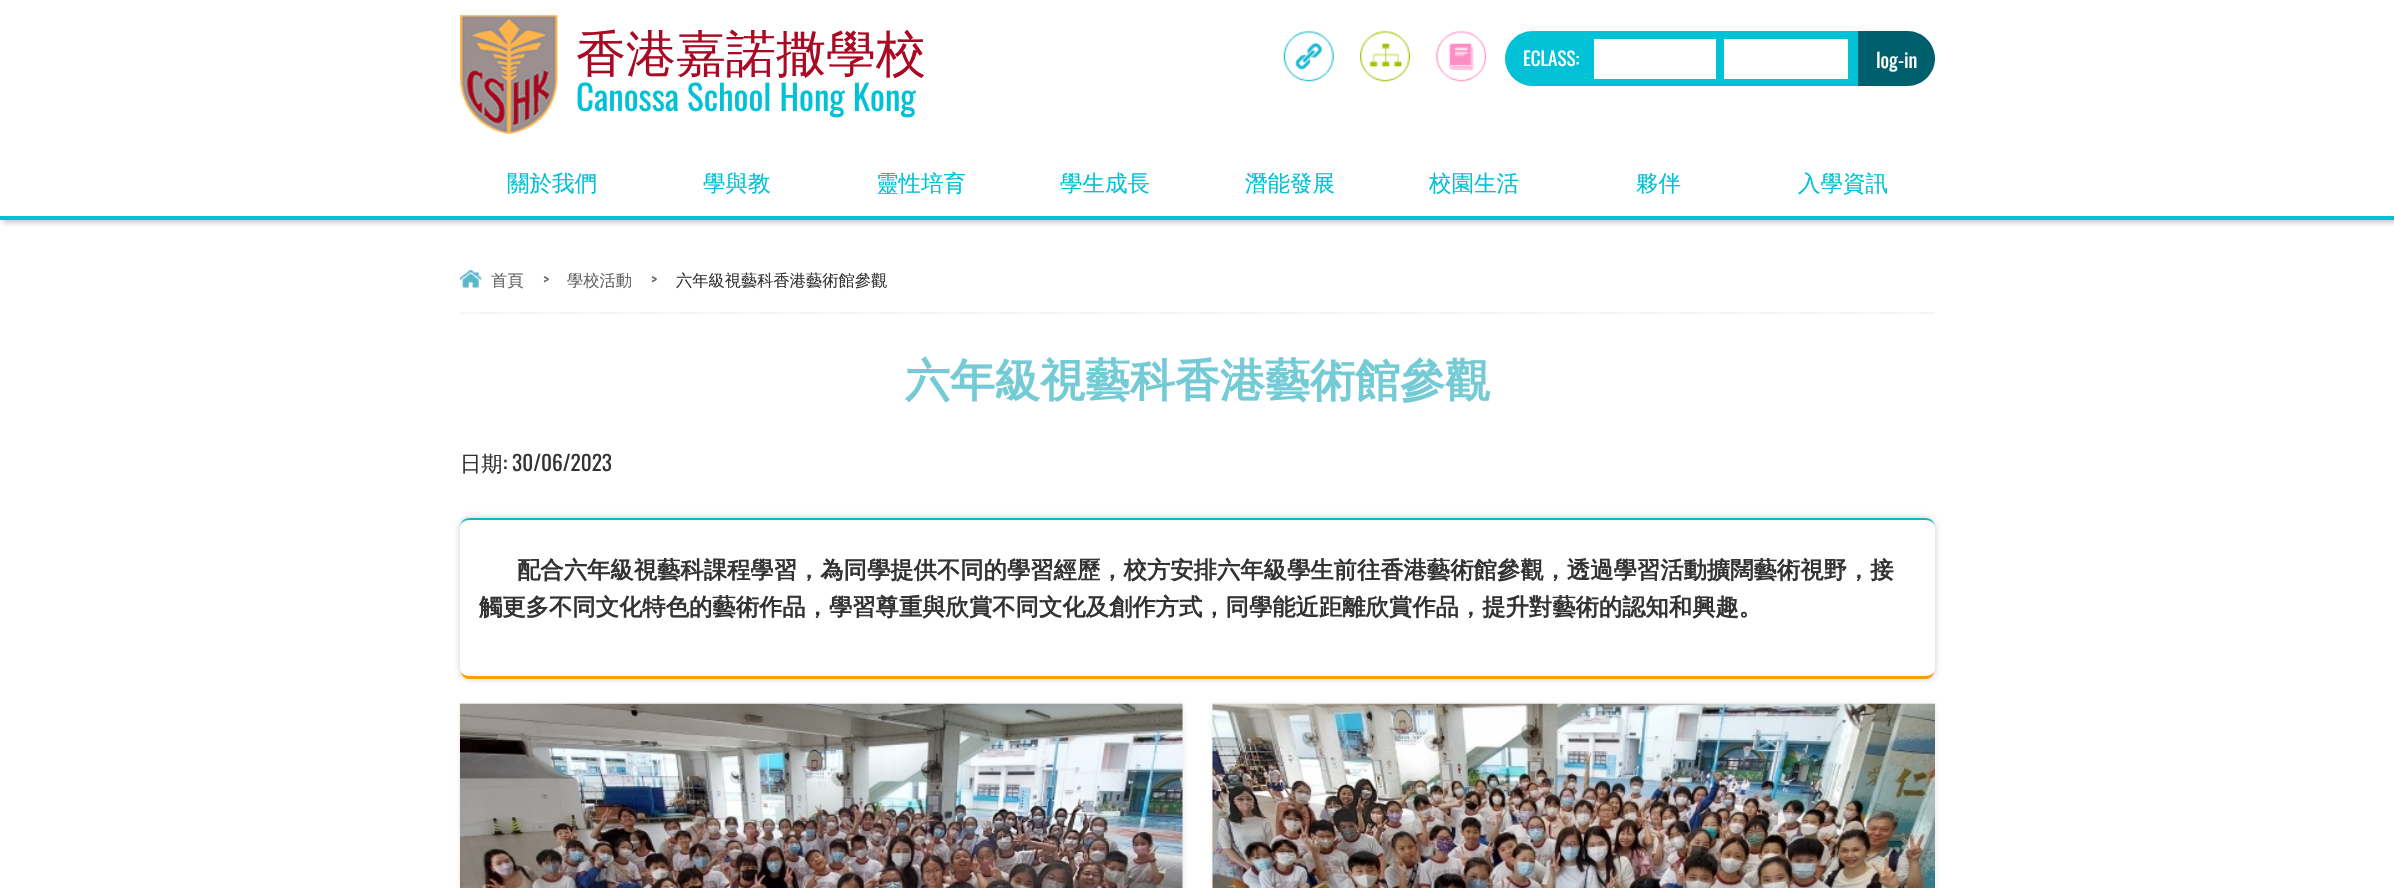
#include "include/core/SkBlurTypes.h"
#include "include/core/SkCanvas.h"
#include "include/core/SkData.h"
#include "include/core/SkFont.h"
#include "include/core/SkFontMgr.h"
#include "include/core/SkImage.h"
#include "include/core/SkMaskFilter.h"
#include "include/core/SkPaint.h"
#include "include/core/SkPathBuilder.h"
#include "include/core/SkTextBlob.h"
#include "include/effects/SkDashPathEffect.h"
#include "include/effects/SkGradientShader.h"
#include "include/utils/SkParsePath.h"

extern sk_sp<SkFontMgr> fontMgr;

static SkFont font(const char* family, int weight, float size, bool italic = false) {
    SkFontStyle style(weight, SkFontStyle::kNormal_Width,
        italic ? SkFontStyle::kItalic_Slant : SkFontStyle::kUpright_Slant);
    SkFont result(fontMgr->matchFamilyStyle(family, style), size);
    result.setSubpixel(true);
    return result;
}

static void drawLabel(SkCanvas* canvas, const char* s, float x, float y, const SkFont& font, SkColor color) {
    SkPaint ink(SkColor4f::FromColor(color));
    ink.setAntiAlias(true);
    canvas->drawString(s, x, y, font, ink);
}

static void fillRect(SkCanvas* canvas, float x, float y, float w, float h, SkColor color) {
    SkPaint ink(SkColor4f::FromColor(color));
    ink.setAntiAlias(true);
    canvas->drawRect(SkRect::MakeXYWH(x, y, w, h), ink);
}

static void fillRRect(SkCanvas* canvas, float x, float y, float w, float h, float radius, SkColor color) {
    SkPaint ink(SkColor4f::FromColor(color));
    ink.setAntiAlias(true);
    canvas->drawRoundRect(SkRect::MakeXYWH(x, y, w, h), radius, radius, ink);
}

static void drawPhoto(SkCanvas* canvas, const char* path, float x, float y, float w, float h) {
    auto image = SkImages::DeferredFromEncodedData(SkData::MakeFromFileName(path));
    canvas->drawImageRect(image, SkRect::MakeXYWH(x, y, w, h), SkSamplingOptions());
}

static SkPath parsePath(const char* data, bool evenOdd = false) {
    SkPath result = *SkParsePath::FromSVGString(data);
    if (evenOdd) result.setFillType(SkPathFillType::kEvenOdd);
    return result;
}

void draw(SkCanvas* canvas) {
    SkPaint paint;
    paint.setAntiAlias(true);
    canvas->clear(0xFFFFFFFF);
    canvas->save();
    canvas->clipRect(SkRect::MakeXYWH(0, 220, 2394, 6));
    paint.setColor(0x33000000);
    paint.setMaskFilter(SkMaskFilter::MakeBlur(kNormal_SkBlurStyle, 2.5f));
    canvas->drawRect(SkRect::MakeXYWH(3, 3, 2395, 220), paint);
    paint.setMaskFilter(nullptr);
    canvas->restore();
    fillRect(canvas, 0, 216, 2394, 4, 0xFF00C1D5);
    drawPhoto(canvas, "assets/img1.png", 460, 14, 98, 120);
    SkFont font1 = font("WenQuanYi Zen Hei", 500, 50);
    drawLabel(canvas, "香港嘉諾撒學校", 576, 71, font1, 0xFFA90923);
    SkFont font2 = font("Oswald", 400, 35);
    drawLabel(canvas, "Canossa School Hong Kong", 576, 111, font2, 0xFF00C1D5);
    drawPhoto(canvas, "assets/img2.png", 1283, 31, 51, 51);
    drawPhoto(canvas, "assets/img3.png", 1360, 31, 50, 51);
    drawPhoto(canvas, "assets/img4.png", 1436, 31, 51, 51);
    paint.setColor(0xFF00C1D5);
    canvas->drawPath(parsePath("M1532.5 31H1858V86H1532.5C1517.5 86 1505 73.5 1505 58.5C1505 43.5 1517.5 31 1532.5 31Z"), paint);
    SkFont font3 = font("Oswald", 400, 19);
    drawLabel(canvas, "ECLASS:", 1523, 66, font3, 0xFFFFFFFF);
    fillRect(canvas, 1594, 39, 122, 40, 0xFFFFFFFF);
    fillRect(canvas, 1724, 39, 124, 40, 0xFFFFFFFF);
    paint.setColor(0xFF005F6C);
    canvas->drawPath(parsePath("M1858 31H1907.5C1922.5 31 1935 43.5 1935 58.5C1935 73.5 1922.5 86 1907.5 86H1858Z"), paint);
    SkFont font4 = font("Oswald", 400, 20);
    drawLabel(canvas, "log-in", 1876, 68, font4, 0xFFFFFFFF);
    SkFont font5 = font("WenQuanYi Zen Hei", 500, 22.5f);
    drawLabel(canvas, "關於我們", 507, 191, font5, 0xFF00C1D5);
    drawLabel(canvas, "學與教", 703, 191, font5, 0xFF00C1D5);
    drawLabel(canvas, "靈性培育", 876, 191, font5, 0xFF00C1D5);
    drawLabel(canvas, "學生成長", 1060, 191, font5, 0xFF00C1D5);
    drawLabel(canvas, "潛能發展", 1245, 191, font5, 0xFF00C1D5);
    drawLabel(canvas, "校園生活", 1429, 191, font5, 0xFF00C1D5);
    drawLabel(canvas, "夥伴", 1636, 191, font5, 0xFF00C1D5);
    drawLabel(canvas, "入學資訊", 1798, 191, font5, 0xFF00C1D5);
    paint.setStroke(true);
    paint.setStrokeWidth(1.2f);
    paint.setColor(0xFFDDDDDD);
    paint.setPathEffect(SkDashPathEffect::Make({{1.25f, 1.25f}}, 0));
    canvas->drawPath(parsePath("M460 313H1935"), paint);
    paint.setPathEffect(nullptr);
    drawPhoto(canvas, "assets/img5.png", 460, 270, 22, 18);
    SkFont font6 = font("WenQuanYi Zen Hei", 500, 16.25f);
    drawLabel(canvas, "首頁", 491, 286, font6, 0xFF666666);
    SkFont font7 = font("Oswald", 400, 16.25f);
    drawLabel(canvas, ">", 543, 286, font7, 0xFF666666);
    drawLabel(canvas, "學校活動", 567, 286, font6, 0xFF666666);
    drawLabel(canvas, ">", 651, 286, font7, 0xFF666666);
    drawLabel(canvas, "六年級視藝科香港藝術館參觀", 676, 286, font6, 0xFF333333);
    SkFont font8 = font("WenQuanYi Zen Hei", 700, 45);
    drawLabel(canvas, "六年級視藝科香港藝術館參觀", 905, 396, font8, 0xFF74CBD5);
    SkFont font9 = font("WenQuanYi Zen Hei", 500, 21.25f);
    drawLabel(canvas, "日期", 460, 471, font9, 0xFF333333);
    SkFont font10 = font("Oswald", 400, 21.25f);
    drawLabel(canvas, ": 30/06/2023", 503, 471, font10, 0xFF333333);
    paint.setStroke(false);
    paint.setColor(0x33000000);
    paint.setMaskFilter(SkMaskFilter::MakeBlur(kNormal_SkBlurStyle, 3));
    canvas->drawRoundRect(SkRect::MakeXYWH(460, 518, 1475, 161), 10, 10, paint);
    paint.setMaskFilter(nullptr);
    fillRRect(canvas, 460, 518, 1475, 161, 10, 0xFFFFFFFF);
    paint.setColor(0xFF14B7CA);
    canvas->drawPath(parsePath("M470 518C464 518 460 522 460 528C460 523 464 520 470 520H1925C1931 520 1935 523 1935 528C1935 522 1931 518 1925 518Z"), paint);
    paint.setColor(0xFFF99E00);
    canvas->drawPath(parsePath("M1927 679C1932 678 1935 673 1935 669C1935 673 1931 676 1925 676H470C464 676 460 673 460 669C460 673 463 678 468 679Z"), paint);
    SkFont font11 = font("WenQuanYi Zen Hei", 700, 23.33f);
    drawLabel(canvas, "配合六年級視藝科課程學習，為同學提供不同的學習經歷，校方安排六年級學生前往香港藝術館參觀，透過學習活動擴闊藝術視野，接", 517, 578, font11, 0xFF333333);
    drawLabel(canvas, "觸更多不同文化特色的藝術作品，學習尊重與欣賞不同文化及創作方式，同學能近距離欣賞作品，提升對藝術的認知和興趣。", 479, 615, font11, 0xFF333333);
    paint.setColor(0x1A000000);
    paint.setMaskFilter(SkMaskFilter::MakeBlur(kNormal_SkBlurStyle, 2));
    canvas->drawRect(SkRect::MakeXYWH(460, 704, 723, 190), paint);
    paint.setMaskFilter(nullptr);
    drawPhoto(canvas, "assets/img6.png", 460, 703, 723, 185);
    paint.setMaskFilter(SkMaskFilter::MakeBlur(kNormal_SkBlurStyle, 2));
    canvas->drawRect(SkRect::MakeXYWH(1213, 704, 722, 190), paint);
    paint.setMaskFilter(nullptr);
    drawPhoto(canvas, "assets/img7.png", 1212, 703, 723, 185);
}
